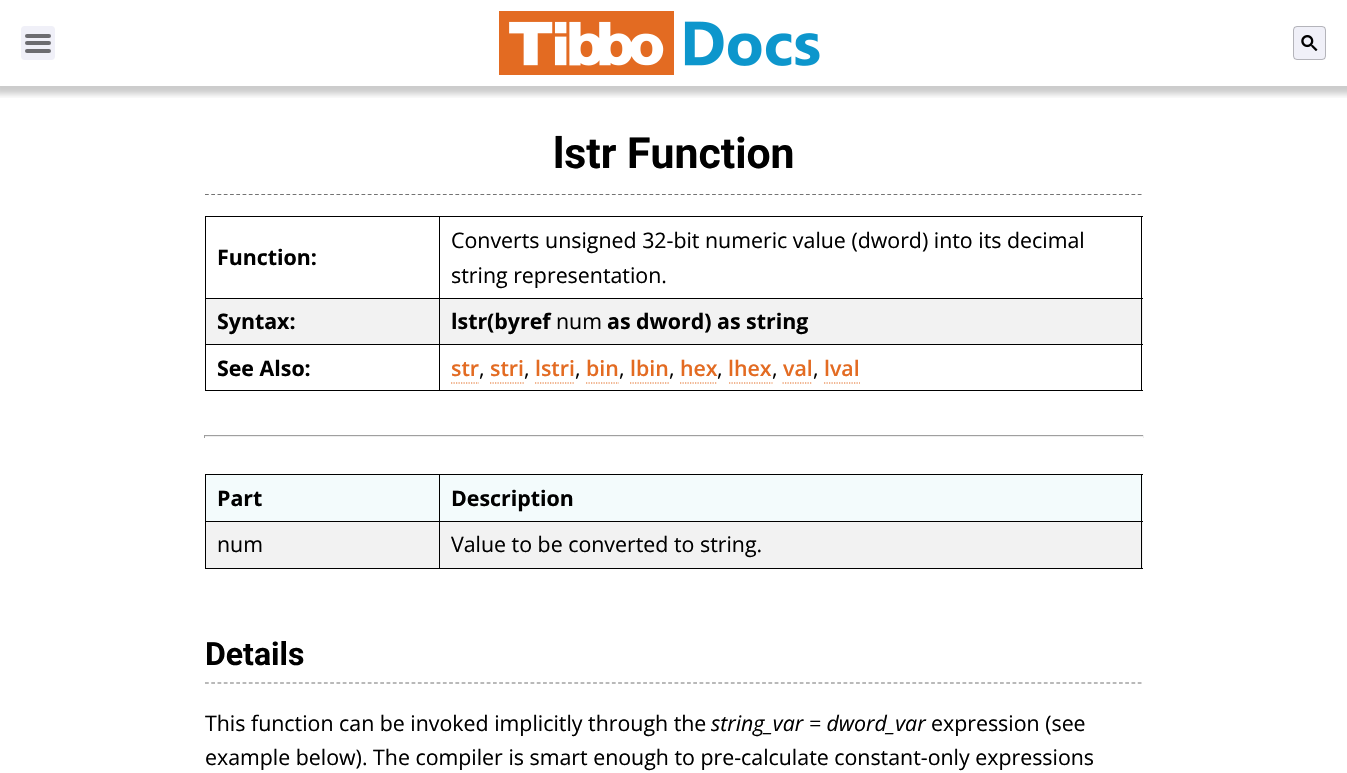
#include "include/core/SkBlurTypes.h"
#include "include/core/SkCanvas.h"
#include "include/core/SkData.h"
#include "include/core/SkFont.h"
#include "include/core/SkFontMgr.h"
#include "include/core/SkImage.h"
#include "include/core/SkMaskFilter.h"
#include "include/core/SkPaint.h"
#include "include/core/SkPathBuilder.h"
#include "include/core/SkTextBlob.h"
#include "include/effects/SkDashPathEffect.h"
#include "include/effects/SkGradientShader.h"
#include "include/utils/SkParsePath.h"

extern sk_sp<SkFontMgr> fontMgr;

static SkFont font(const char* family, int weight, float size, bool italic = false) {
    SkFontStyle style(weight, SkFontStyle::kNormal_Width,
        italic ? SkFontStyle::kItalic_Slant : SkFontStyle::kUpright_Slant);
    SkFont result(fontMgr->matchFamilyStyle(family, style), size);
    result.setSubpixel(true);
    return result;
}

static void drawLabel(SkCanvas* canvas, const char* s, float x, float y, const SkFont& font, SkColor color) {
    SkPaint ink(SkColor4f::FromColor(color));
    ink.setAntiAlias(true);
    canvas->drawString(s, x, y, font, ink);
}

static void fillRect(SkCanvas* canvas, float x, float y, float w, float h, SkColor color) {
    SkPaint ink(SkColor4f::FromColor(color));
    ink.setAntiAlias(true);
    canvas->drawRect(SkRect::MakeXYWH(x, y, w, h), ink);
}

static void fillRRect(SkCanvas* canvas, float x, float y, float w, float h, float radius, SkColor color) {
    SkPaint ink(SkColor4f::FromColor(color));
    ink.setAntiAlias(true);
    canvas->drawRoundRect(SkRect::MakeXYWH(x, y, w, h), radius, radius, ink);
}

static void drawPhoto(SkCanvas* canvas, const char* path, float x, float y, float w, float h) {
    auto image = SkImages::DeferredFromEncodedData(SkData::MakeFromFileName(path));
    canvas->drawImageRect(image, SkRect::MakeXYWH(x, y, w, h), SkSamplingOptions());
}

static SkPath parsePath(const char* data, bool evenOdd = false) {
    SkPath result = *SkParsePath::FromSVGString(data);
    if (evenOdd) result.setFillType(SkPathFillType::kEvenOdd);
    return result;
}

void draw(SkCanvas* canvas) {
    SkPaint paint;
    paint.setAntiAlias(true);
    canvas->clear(0xFFFFFFFF);
    canvas->save();
    canvas->clipRect(SkRect::MakeXYWH(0, 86, 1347, 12));
    paint.setColor(0x33000000);
    paint.setMaskFilter(SkMaskFilter::MakeBlur(kNormal_SkBlurStyle, 3));
    canvas->drawRect(SkRect::MakeXYWH(-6, -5, 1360, 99), paint);
    paint.setMaskFilter(nullptr);
    canvas->restore();
    fillRRect(canvas, 21, 26, 34, 34, 4, 0xFFF0F0F8);
    fillRRect(canvas, 25, 34, 26, 4, 2, 0xFF6C6C70);
    fillRRect(canvas, 25, 41, 26, 4, 2, 0xFF6C6C70);
    fillRRect(canvas, 25, 49, 26, 4, 2, 0xFF6C6C70);
    drawPhoto(canvas, "assets/img1.png", 499, 11, 321, 64);
    fillRRect(canvas, 1293, 26, 33, 34, 4, 0xFFF0F0F8);
    paint.setStroke(true);
    paint.setStrokeWidth(1);
    paint.setColor(0x40000000);
    canvas->drawRoundRect(SkRect::MakeXYWH(1293.5f, 26.5f, 32, 33), 3.5f, 3.5f, paint);
    drawPhoto(canvas, "assets/img2.png", 1301, 35, 17, 16);
    paint.setStrokeWidth(1.2f);
    paint.setColor(0xFF737373);
    paint.setPathEffect(SkDashPathEffect::Make({{3.75f, 2.51f}}, 0));
    canvas->drawPath(parsePath("M205 194.5H1142.5"), paint);
    paint.setPathEffect(nullptr);
    SkFont font1 = font("Roboto", 700, 42.75f);
    drawLabel(canvas, "lstr Function", 553, 168, font1, 0xFF000000);
    fillRect(canvas, 439, 216, 704, 1, 0xFF000000);
    fillRect(canvas, 439, 298, 704, 1, 0xFF000000);
    fillRect(canvas, 206, 299, 937, 45, 0xFFF2F2F2);
    fillRect(canvas, 439, 344, 704, 1, 0xFF000000);
    fillRect(canvas, 1141, 344, 1, 47, 0xFF000000);
    fillRect(canvas, 439, 390, 704, 1, 0xFF000000);
    fillRect(canvas, 439, 344, 1, 47, 0xFF000000);
    fillRect(canvas, 205, 344, 235, 1, 0xFF000000);
    fillRect(canvas, 439, 298, 1, 47, 0xFF000000);
    fillRect(canvas, 205, 298, 235, 1, 0xFF000000);
    fillRect(canvas, 439, 216, 1, 83, 0xFF000000);
    fillRect(canvas, 205, 216, 235, 1, 0xFF000000);
    fillRect(canvas, 205, 390, 235, 1, 0xFF000000);
    fillRect(canvas, 205, 344, 1, 47, 0xFF000000);
    fillRect(canvas, 205, 298, 1, 47, 0xFF000000);
    fillRect(canvas, 205, 216, 1, 83, 0xFF000000);
    SkFont font2 = font("Open Sans", 700, 21.35f);
    drawLabel(canvas, "Function:", 217, 265, font2, 0xFF000000);
    fillRect(canvas, 1141, 298, 1, 47, 0xFF000000);
    fillRect(canvas, 1141, 216, 1, 83, 0xFF000000);
    SkFont font3 = font("Open Sans", 400, 21.35f);
    drawLabel(canvas, "Converts unsigned 32-bit numeric value (dword) into its decimal", 451, 248, font3, 0xFF000000);
    drawLabel(canvas, "string representation.", 451, 283, font3, 0xFF000000);
    drawLabel(canvas, "Syntax:", 217, 329, font2, 0xFF000000);
    drawLabel(canvas, "lstr(byref", 451, 329, font2, 0xFF000000);
    drawLabel(canvas, "num", 556, 329, font3, 0xFF000000);
    drawLabel(canvas, "as dword) as string", 607, 329, font2, 0xFF000000);
    drawLabel(canvas, "See Also:", 217, 376, font2, 0xFF000000);
    SkFont font4 = font("Open Sans", 600, 21.35f);
    drawLabel(canvas, "str", 451, 376, font4, 0xFFE36B22);
    paint.setColor(0xFFE36B22);
    paint.setPathEffect(SkDashPathEffect::Make({{1.25f, 1.25f}}, 0));
    canvas->drawPath(parsePath("M451 383H479"), paint);
    paint.setPathEffect(nullptr);
    drawLabel(canvas, ",", 479, 376, font3, 0xFF000000);
    drawLabel(canvas, "stri", 490, 376, font4, 0xFFE36B22);
    paint.setPathEffect(SkDashPathEffect::Make({{1.25f, 1.25f}}, 0));
    canvas->drawPath(parsePath("M490 383H524"), paint);
    paint.setPathEffect(nullptr);
    drawLabel(canvas, ",", 524, 376, font3, 0xFF000000);
    drawLabel(canvas, "lstri", 535, 376, font4, 0xFFE36B22);
    paint.setPathEffect(SkDashPathEffect::Make({{1.25f, 1.25f}}, 0));
    canvas->drawPath(parsePath("M535 383H575"), paint);
    paint.setPathEffect(nullptr);
    drawLabel(canvas, ",", 575, 376, font3, 0xFF000000);
    drawLabel(canvas, "bin", 586, 376, font4, 0xFFE36B22);
    paint.setPathEffect(SkDashPathEffect::Make({{1.25f, 1.25f}}, 0));
    canvas->drawPath(parsePath("M586 383H619"), paint);
    paint.setPathEffect(nullptr);
    drawLabel(canvas, ",", 619, 376, font3, 0xFF000000);
    drawLabel(canvas, "lbin", 630, 376, font4, 0xFFE36B22);
    paint.setPathEffect(SkDashPathEffect::Make({{1.25f, 1.25f}}, 0));
    canvas->drawPath(parsePath("M630 383H669"), paint);
    paint.setPathEffect(nullptr);
    drawLabel(canvas, ",", 669, 376, font3, 0xFF000000);
    drawLabel(canvas, "hex", 680, 376, font4, 0xFFE36B22);
    paint.setPathEffect(SkDashPathEffect::Make({{1.25f, 1.25f}}, 0));
    canvas->drawPath(parsePath("M680 383H717.5"), paint);
    paint.setPathEffect(nullptr);
    drawLabel(canvas, ",", 717, 376, font3, 0xFF000000);
    drawLabel(canvas, "lhex", 728, 376, font4, 0xFFE36B22);
    paint.setPathEffect(SkDashPathEffect::Make({{1.25f, 1.25f}}, 0));
    canvas->drawPath(parsePath("M729 383H772.5"), paint);
    paint.setPathEffect(nullptr);
    drawLabel(canvas, ",", 772, 376, font3, 0xFF000000);
    drawLabel(canvas, "val", 783, 376, font4, 0xFFE36B22);
    paint.setPathEffect(SkDashPathEffect::Make({{1.25f, 1.25f}}, 0));
    canvas->drawPath(parsePath("M782.5 383H812.5"), paint);
    paint.setPathEffect(nullptr);
    drawLabel(canvas, ",", 813, 376, font3, 0xFF000000);
    drawLabel(canvas, "lval", 824, 376, font4, 0xFFE36B22);
    paint.setPathEffect(SkDashPathEffect::Make({{1.25f, 1.25f}}, 0));
    canvas->drawPath(parsePath("M824 383H860"), paint);
    paint.setPathEffect(nullptr);
    fillRect(canvas, 204, 435, 940, 1, 0xFF9F9F9F);
    fillRect(canvas, 1143, 435, 1, 3, 0xFFEEEEEE);
    fillRect(canvas, 204, 436, 940, 1, 0xFFEEEEEE);
    fillRect(canvas, 204, 435, 1, 3, 0xFF9F9F9F);
    fillRect(canvas, 206, 475, 233, 46, 0xFFF3FBFC);
    fillRect(canvas, 439, 474, 704, 1, 0xFF000000);
    fillRect(canvas, 206, 522, 937, 46, 0xFFF2F2F2);
    fillRect(canvas, 439, 521, 704, 1, 0xFF000000);
    fillRect(canvas, 1141, 521, 1, 48, 0xFF000000);
    fillRect(canvas, 439, 568, 704, 1, 0xFF000000);
    fillRect(canvas, 439, 521, 1, 48, 0xFF000000);
    fillRect(canvas, 205, 521, 235, 1, 0xFF000000);
    fillRect(canvas, 439, 474, 1, 49, 0xFF000000);
    fillRect(canvas, 205, 474, 235, 1, 0xFF000000);
    fillRect(canvas, 205, 568, 235, 1, 0xFF000000);
    fillRect(canvas, 205, 521, 1, 48, 0xFF000000);
    fillRect(canvas, 205, 474, 1, 49, 0xFF000000);
    drawLabel(canvas, "Part", 217, 506, font2, 0xFF000000);
    fillRect(canvas, 440, 475, 703, 46, 0xFFF3FBFC);
    fillRect(canvas, 1141, 474, 1, 49, 0xFF000000);
    drawLabel(canvas, "Description", 451, 506, font2, 0xFF000000);
    drawLabel(canvas, "num", 217, 552, font3, 0xFF000000);
    drawLabel(canvas, "Value to be converted to string.", 451, 552, font3, 0xFF000000);
    paint.setColor(0xFF737373);
    paint.setPathEffect(SkDashPathEffect::Make({{3.75f, 2.51f}}, 0));
    canvas->drawPath(parsePath("M205 683H1142.5"), paint);
    paint.setPathEffect(nullptr);
    SkFont font5 = font("Roboto", 700, 32);
    drawLabel(canvas, "Details", 205, 665, font5, 0xFF000000);
    drawLabel(canvas, "This function can be invoked implicitly through the", 205, 731, font3, 0xFF000000);
    SkFont font6 = font("Open Sans", 400, 21.35f, true);
    drawLabel(canvas, "string_var = dword_var", 711, 731, font6, 0xFF000000);
    drawLabel(canvas, "expression (see", 931, 731, font3, 0xFF000000);
    drawLabel(canvas, "example below). The compiler is smart enough to pre-calculate constant-only expressions", 205, 765, font3, 0xFF000000);
}
